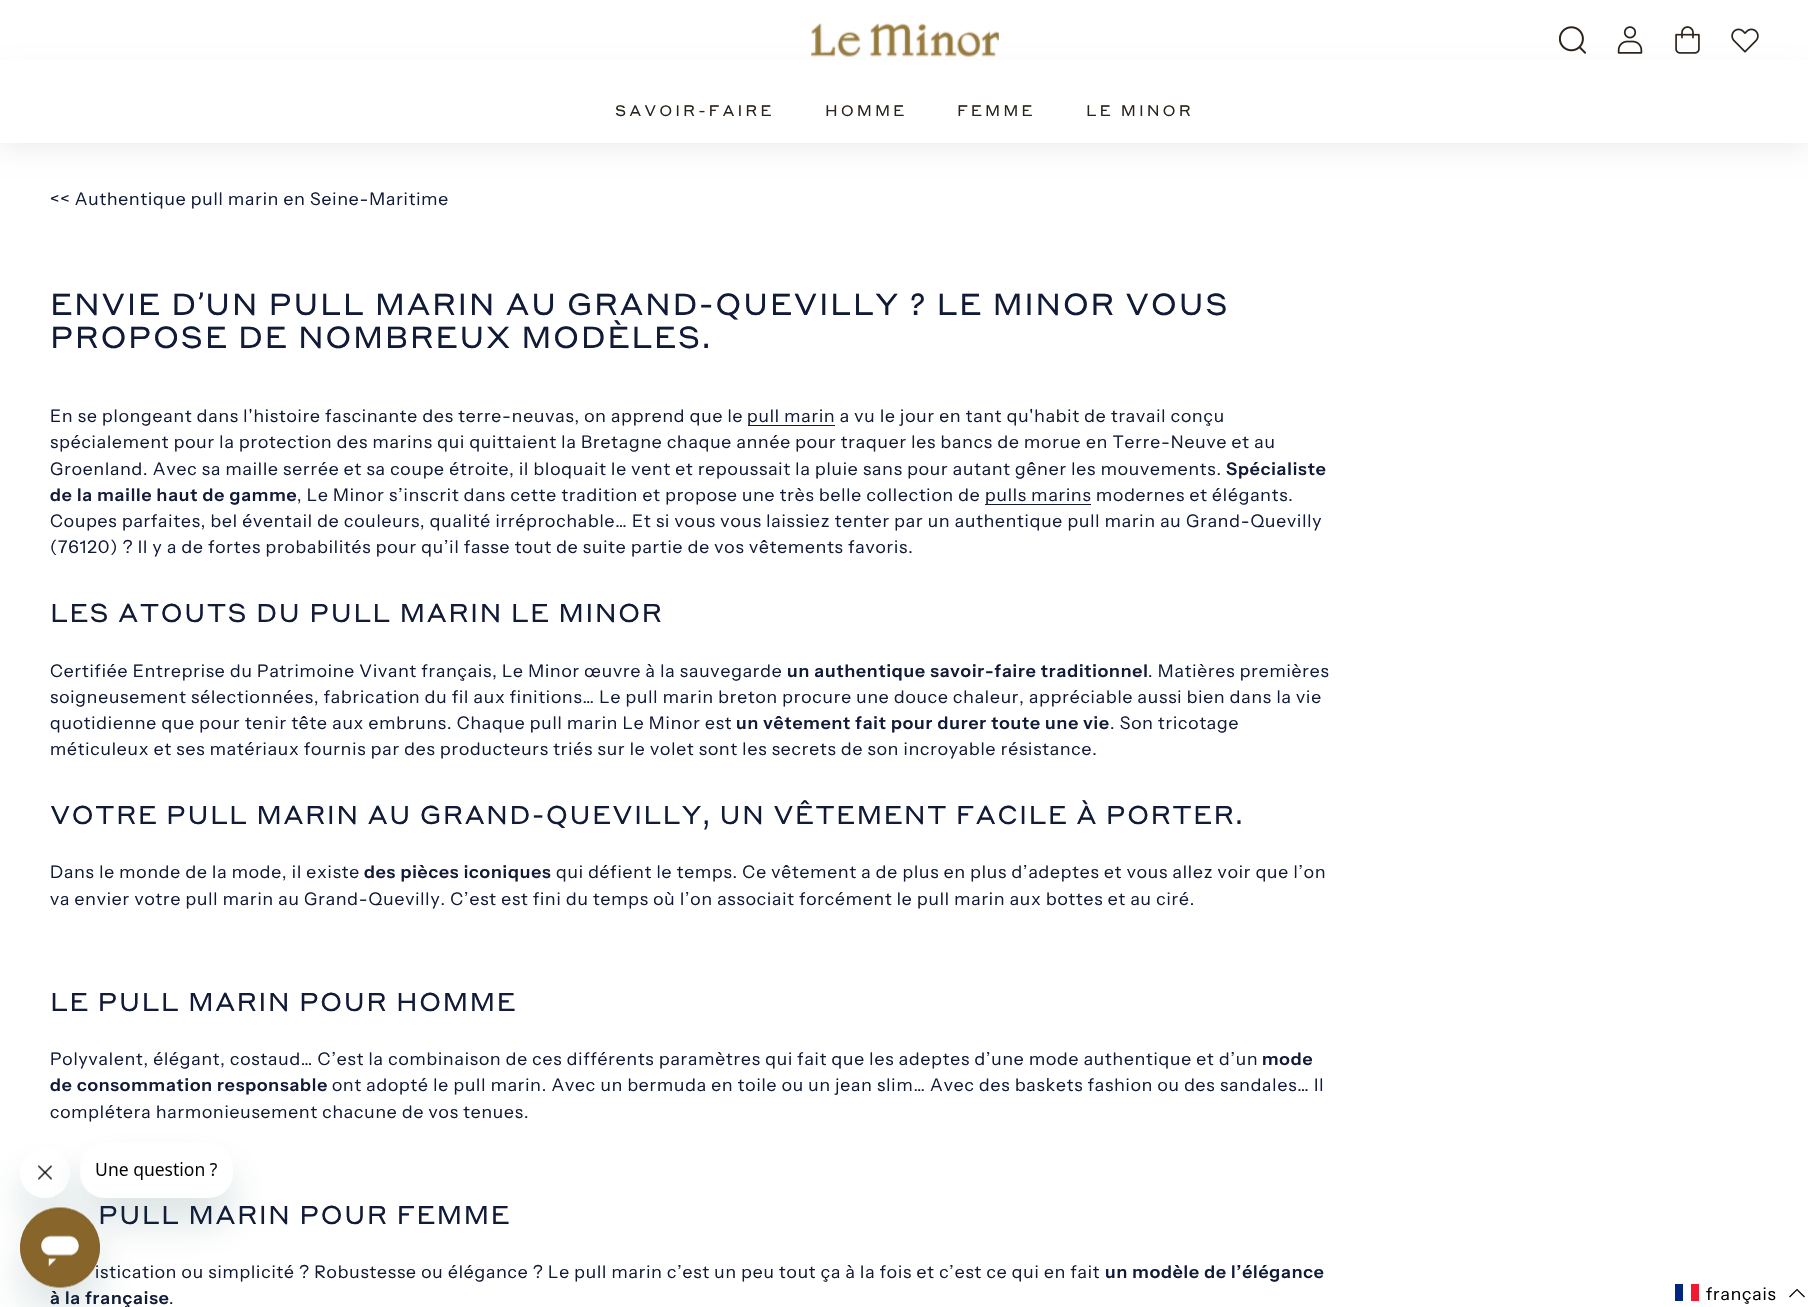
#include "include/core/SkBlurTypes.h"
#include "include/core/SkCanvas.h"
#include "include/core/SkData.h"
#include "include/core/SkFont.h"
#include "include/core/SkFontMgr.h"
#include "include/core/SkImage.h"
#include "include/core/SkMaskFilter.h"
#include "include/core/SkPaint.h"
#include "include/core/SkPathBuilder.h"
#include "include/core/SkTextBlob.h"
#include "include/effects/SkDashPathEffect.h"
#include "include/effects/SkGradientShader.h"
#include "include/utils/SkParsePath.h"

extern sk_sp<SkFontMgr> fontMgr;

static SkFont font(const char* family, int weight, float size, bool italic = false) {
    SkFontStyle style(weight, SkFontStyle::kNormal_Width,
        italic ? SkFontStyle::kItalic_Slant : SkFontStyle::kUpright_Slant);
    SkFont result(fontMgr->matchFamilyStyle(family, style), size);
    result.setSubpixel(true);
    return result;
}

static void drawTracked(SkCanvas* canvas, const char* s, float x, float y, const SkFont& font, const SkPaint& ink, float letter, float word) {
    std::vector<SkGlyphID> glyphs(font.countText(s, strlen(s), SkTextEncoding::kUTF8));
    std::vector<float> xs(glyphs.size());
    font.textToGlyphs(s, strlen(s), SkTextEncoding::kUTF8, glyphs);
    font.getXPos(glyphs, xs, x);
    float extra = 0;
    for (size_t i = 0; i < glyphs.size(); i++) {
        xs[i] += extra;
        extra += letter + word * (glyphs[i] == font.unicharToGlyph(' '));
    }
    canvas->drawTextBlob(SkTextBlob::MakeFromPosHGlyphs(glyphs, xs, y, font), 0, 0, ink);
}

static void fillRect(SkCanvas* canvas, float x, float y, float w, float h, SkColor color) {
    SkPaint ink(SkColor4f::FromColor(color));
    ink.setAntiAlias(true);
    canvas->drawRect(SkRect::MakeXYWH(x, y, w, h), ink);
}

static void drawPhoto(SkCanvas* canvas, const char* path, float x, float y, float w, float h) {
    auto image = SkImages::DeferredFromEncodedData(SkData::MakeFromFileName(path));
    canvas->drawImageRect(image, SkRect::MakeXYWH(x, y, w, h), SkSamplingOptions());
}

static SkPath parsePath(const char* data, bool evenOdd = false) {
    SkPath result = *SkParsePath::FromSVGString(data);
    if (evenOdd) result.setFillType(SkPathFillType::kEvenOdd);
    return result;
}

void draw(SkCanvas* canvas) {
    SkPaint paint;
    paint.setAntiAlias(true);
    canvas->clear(0xFFFFFFFF);
    paint.setColor(0x1A000000);
    paint.setMaskFilter(SkMaskFilter::MakeBlur(kNormal_SkBlurStyle, 15.5f));
    canvas->drawRect(SkRect::MakeXYWH(0, 80, 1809, 63), paint);
    paint.setMaskFilter(nullptr);
    drawPhoto(canvas, "assets/img1.png", 811, 23, 188, 34);
    drawPhoto(canvas, "assets/img2.png", 1559, 26, 27, 28);
    drawPhoto(canvas, "assets/img3.png", 1617, 26, 26, 28);
    drawPhoto(canvas, "assets/img4.png", 1675, 26, 25, 28);
    drawPhoto(canvas, "assets/img5.png", 1731, 28, 28, 25);
    fillRect(canvas, 0, 60, 1808, 83, 0xFFFFFFFF);
    SkFont font1 = font("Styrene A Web", 400, 15);
    paint.setColor(0xFF2B241C);
    drawTracked(canvas, "SAVOIR-FAIRE", 615, 116, font1, paint, 3, 0);
    drawTracked(canvas, "HOMME", 825, 116, font1, paint, 3, 0);
    drawTracked(canvas, "FEMME", 957, 116, font1, paint, 3, 0);
    drawTracked(canvas, "LE MINOR", 1086, 116, font1, paint, 3, 0);
    SkFont font2 = font("Instrument Sans", 400, 17.5f);
    paint.setColor(0xFF111A37);
    drawTracked(canvas, "<< Authentique pull marin en Seine-Maritime", 50, 205, font2, paint, 0.88f, 0);
    SkFont font3 = font("Styrene A Web", 400, 30);
    drawTracked(canvas, "ENVIE D", 50, 315, font3, paint, 1.5f, 0);
    SkFont font4 = font("Roboto", 400, 30);
    drawTracked(canvas, "’", 198, 315, font4, paint, 1.5f, 0);
    drawTracked(canvas, "UN PULL MARIN AU GRAND-QUEVILLY ? LE MINOR VOUS", 205, 315, font3, paint, 1.5f, 0);
    drawTracked(canvas, "PROPOSE DE NOMBREUX MODÈLES.", 50, 348, font3, paint, 1.5f, 0);
    drawTracked(canvas, "En se plongeant dans l'histoire fascinante des terre-neuvas, on apprend que le", 50, 422, font2, paint, 0.88f, 0);
    fillRect(canvas, 748, 425, 87, 1, 0xFF111A37);
    drawTracked(canvas, "pull marin a vu le jour en tant qu'habit de travail conçu", 747, 422, font2, paint, 0.88f, 0);
    drawTracked(canvas, "spécialement pour la protection des marins qui quittaient la Bretagne chaque année pour traquer les bancs de morue en Terre-Neuve et au", 50, 448, font2, paint, 0.88f, 0);
    drawTracked(canvas, "Groenland. Avec sa maille serrée et sa coupe étroite, il bloquait le vent et repoussait la pluie sans pour autant gêner les mouvements.", 50, 475, font2, paint, 0.88f, 0);
    SkFont font5 = font("Instrument Sans", 600, 17.5f);
    drawTracked(canvas, "Spécialiste", 1226, 475, font5, paint, 0.88f, 0);
    drawTracked(canvas, "de la maille haut de gamme", 50, 501, font5, paint, 0.88f, 0);
    drawTracked(canvas, ", Le Minor s’inscrit dans cette tradition et propose une très belle collection de", 297, 501, font2, paint, 0.88f, 0);
    fillRect(canvas, 985, 504, 106, 1, 0xFF111A37);
    drawTracked(canvas, "pulls marins modernes et élégants.", 985, 501, font2, paint, 0.88f, 0);
    drawTracked(canvas, "Coupes parfaites, bel éventail de couleurs, qualité irréprochable… Et si vous vous laissiez tenter par un authentique pull marin au Grand-Quevilly", 50, 527, font2, paint, 0.88f, 0);
    drawTracked(canvas, "(76120) ? Il y a de fortes probabilités pour qu’il fasse tout de suite partie de vos vêtements favoris.", 50, 553, font2, paint, 0.88f, 0);
    SkFont font6 = font("Styrene A Web", 400, 25.5f);
    drawTracked(canvas, "LES ATOUTS DU PULL MARIN LE MINOR", 50, 622, font6, paint, 1.27f, 0);
    drawTracked(canvas, "Certifiée Entreprise du Patrimoine Vivant français, Le Minor œuvre à la sauvegarde", 50, 677, font2, paint, 0.88f, 0);
    drawTracked(canvas, "un authentique savoir-faire traditionnel", 787, 677, font5, paint, 0.88f, 0);
    drawTracked(canvas, ". Matières premières", 1148, 677, font2, paint, 0.88f, 0);
    drawTracked(canvas, "soigneusement sélectionnées, fabrication du fil aux finitions… Le pull marin breton procure une douce chaleur, appréciable aussi bien dans la vie", 50, 703, font2, paint, 0.88f, 0);
    drawTracked(canvas, "quotidienne que pour tenir tête aux embruns. Chaque pull marin Le Minor est", 50, 729, font2, paint, 0.88f, 0);
    drawTracked(canvas, "un vêtement fait pour durer toute une vie", 736, 729, font5, paint, 0.88f, 0);
    drawTracked(canvas, ". Son tricotage", 1110, 729, font2, paint, 0.88f, 0);
    drawTracked(canvas, "méticuleux et ses matériaux fournis par des producteurs triés sur le volet sont les secrets de son incroyable résistance.", 50, 755, font2, paint, 0.88f, 0);
    drawTracked(canvas, "VOTRE PULL MARIN AU GRAND-QUEVILLY, UN VÊTEMENT FACILE À PORTER.", 50, 824, font6, paint, 1.27f, 0);
    drawTracked(canvas, "Dans le monde de la mode, il existe", 50, 878, font2, paint, 0.88f, 0);
    drawTracked(canvas, "des pièces iconiques", 364, 878, font5, paint, 0.88f, 0);
    drawTracked(canvas, "qui défient le temps. Ce vêtement a de plus en plus d’adeptes et vous allez voir que l’on", 556, 878, font2, paint, 0.88f, 0);
    drawTracked(canvas, "va envier votre pull marin au Grand-Quevilly. C’est est fini du temps où l’on associait forcément le pull marin aux bottes et au ciré.", 50, 905, font2, paint, 0.88f, 0);
    drawTracked(canvas, "LE PULL MARIN POUR HOMME", 50, 1011, font6, paint, 1.27f, 0);
    drawTracked(canvas, "Polyvalent, élégant, costaud… C’est la combinaison de ces différents paramètres qui fait que les adeptes d’une mode authentique et d’un", 50, 1065, font2, paint, 0.88f, 0);
    drawTracked(canvas, "mode", 1262, 1065, font5, paint, 0.88f, 0);
    drawTracked(canvas, "de consommation responsable", 50, 1091, font5, paint, 0.88f, 0);
    drawTracked(canvas, "ont adopté le pull marin. Avec un bermuda en toile ou un jean slim… Avec des baskets fashion ou des sandales… Il", 332, 1091, font2, paint, 0.88f, 0);
    drawTracked(canvas, "complétera harmonieusement chacune de vos tenues.", 50, 1118, font2, paint, 0.88f, 0);
    drawTracked(canvas, "PULL MARIN POUR FEMME", 98, 1224, font6, paint, 1.27f, 0);
    drawTracked(canvas, "istication ou simplicité ? Robustesse ou élégance ? Le pull marin c’est un peu tout ça à la fois et c’est ce qui en fait", 95, 1278, font2, paint, 0.88f, 0);
    drawTracked(canvas, "un modèle de l’élégance", 1105, 1278, font5, paint, 0.88f, 0);
    drawTracked(canvas, "à la française", 50, 1304, font5, paint, 0.88f, 0);
    drawTracked(canvas, ".", 169, 1304, font2, paint, 0.88f, 0);
    canvas->save();
    canvas->clipPath(parsePath("M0 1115H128V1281H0ZM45 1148C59 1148 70 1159 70 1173C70 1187 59 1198 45 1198C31 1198 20 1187 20 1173C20 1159 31 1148 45 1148Z", true), true);
    paint.setColor(0x2617494D);
    paint.setMaskFilter(SkMaskFilter::MakeBlur(kNormal_SkBlurStyle, 19));
    canvas->drawRoundRect(SkRect::MakeXYWH(20, 1173, 50, 50), 25, 25, paint);
    paint.setMaskFilter(nullptr);
    canvas->restore();
    drawPhoto(canvas, "assets/img7.png", 38, 1165, 14, 33);
    canvas->save();
    canvas->clipPath(parsePath("M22 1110H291V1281H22ZM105 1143H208C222 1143 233 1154 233 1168V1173C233 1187 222 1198 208 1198H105C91 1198 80 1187 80 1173V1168C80 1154 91 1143 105 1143Z", true), true);
    paint.setMaskFilter(SkMaskFilter::MakeBlur(kNormal_SkBlurStyle, 19));
    canvas->drawRoundRect(SkRect::MakeXYWH(80, 1168, 153, 55), 25, 25, paint);
    paint.setMaskFilter(nullptr);
    canvas->restore();
    drawPhoto(canvas, "assets/img6.png", 81, 1162, 136, 31);
    paint.setMaskFilter(SkMaskFilter::MakeBlur(kNormal_SkBlurStyle, 19));
    canvas->drawRoundRect(SkRect::MakeXYWH(20, 1233, 80, 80), 40, 40, paint);
    paint.setMaskFilter(nullptr);
    drawPhoto(canvas, "assets/img8.png", 20, 1207, 80, 81);
    fillRect(canvas, 1675, 1284, 8, 17, 0xFF00267F);
    fillRect(canvas, 1691, 1284, 8, 17, 0xFFF31830);
    paint.setColor(0xFF000000);
    drawTracked(canvas, "français", 1706, 1300, font2, paint, 0.88f, 0);
    paint.setStroke(true);
    paint.setStrokeWidth(1.2f);
    canvas->drawPath(parsePath("M1804.5 1297L1797 1289.5L1789.5 1297"), paint);
}
